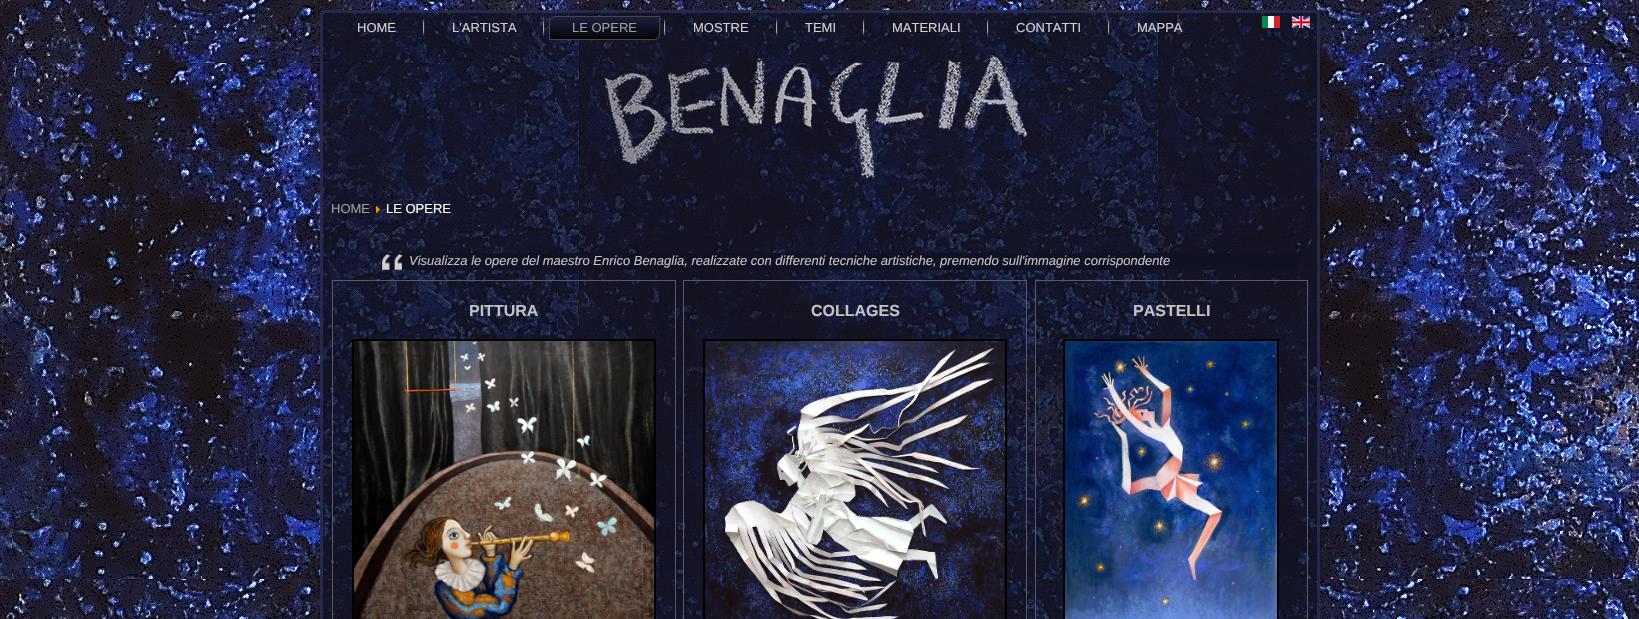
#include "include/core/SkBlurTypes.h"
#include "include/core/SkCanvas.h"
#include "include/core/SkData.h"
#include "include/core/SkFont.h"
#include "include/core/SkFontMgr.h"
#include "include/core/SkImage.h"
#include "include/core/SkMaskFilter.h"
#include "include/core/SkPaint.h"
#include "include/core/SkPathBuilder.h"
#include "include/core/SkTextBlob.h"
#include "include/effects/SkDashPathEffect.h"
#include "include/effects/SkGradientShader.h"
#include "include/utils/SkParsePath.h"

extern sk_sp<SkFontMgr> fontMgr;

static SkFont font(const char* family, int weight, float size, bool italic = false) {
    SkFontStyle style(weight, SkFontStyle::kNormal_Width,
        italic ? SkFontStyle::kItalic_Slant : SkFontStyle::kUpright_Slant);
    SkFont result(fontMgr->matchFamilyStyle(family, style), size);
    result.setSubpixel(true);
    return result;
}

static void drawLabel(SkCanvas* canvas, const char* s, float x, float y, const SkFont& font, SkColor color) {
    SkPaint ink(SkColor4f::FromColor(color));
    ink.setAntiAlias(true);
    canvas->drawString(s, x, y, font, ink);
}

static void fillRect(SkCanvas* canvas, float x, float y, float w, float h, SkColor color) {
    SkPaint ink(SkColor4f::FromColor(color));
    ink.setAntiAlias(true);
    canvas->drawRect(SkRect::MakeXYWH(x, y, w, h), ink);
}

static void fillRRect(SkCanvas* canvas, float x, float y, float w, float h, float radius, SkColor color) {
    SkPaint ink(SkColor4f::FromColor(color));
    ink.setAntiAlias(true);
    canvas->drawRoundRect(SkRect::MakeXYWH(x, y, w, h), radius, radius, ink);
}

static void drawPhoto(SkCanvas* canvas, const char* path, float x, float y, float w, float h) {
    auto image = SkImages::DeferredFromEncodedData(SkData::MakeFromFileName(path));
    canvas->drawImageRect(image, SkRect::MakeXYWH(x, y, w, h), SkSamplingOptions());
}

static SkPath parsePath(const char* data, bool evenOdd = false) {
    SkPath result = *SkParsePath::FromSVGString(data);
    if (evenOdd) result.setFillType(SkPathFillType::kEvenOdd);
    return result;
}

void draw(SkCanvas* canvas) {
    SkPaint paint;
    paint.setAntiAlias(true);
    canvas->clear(0xFFFFFFFF);
    drawPhoto(canvas, "assets/img1.png", 0, 0, 1639, 619);
    canvas->save();
    canvas->clipPath(parsePath("M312 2H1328V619H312ZM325 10H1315C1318 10 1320 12 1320 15V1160C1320 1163 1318 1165 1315 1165H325C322 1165 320 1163 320 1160V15C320 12 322 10 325 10Z", true), true);
    paint.setColor(0x1F000000);
    paint.setMaskFilter(SkMaskFilter::MakeBlur(kNormal_SkBlurStyle, 1.5f));
    canvas->drawRoundRect(SkRect::MakeXYWH(318, 8, 1004, 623), 7, 7, paint);
    paint.setMaskFilter(nullptr);
    canvas->restore();
    fillRRect(canvas, 320, 10, 1000, 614, 5, 0xCC101123);
    paint.setStroke(true);
    paint.setStrokeWidth(3);
    paint.setColor(0xCC2A2C55);
    canvas->drawRoundRect(SkRect::MakeXYWH(321.5f, 11.5f, 997, 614), 3.5f, 3.5f, paint);
    SkFont font1 = font("Liberation Sans", 400, 13);
    drawLabel(canvas, "HOME", 357, 32, font1, 0xFFD1D1D1);
    drawPhoto(canvas, "assets/img2.png", 423, 19, 2, 17);
    drawLabel(canvas, "L'ARTISTA", 452, 32, font1, 0xFFD1D1D1);
    drawPhoto(canvas, "assets/img3.png", 543, 19, 2, 17);
    paint.setStroke(false);
    {
        const SkColor colors[] = {0xF71F2042, 0xF7020203};
        const float stops[] = {0, 1};
        const SkPoint ends[] = {{605, 16}, {605, 40}};
        paint.setShader(SkGradientShader::MakeLinear(ends, colors, stops, 2, SkTileMode::kClamp));
        paint.setAlpha(255);
    }
    canvas->drawPath(parsePath("M555 16.5H659.5V34C659.5 37 657 39.5 654 39.5H549.5V22C549.5 19 552 16.5 555 16.5Z"), paint);
    paint.setStroke(true);
    paint.setStrokeWidth(1);
    paint.setShader(nullptr);
    paint.setColor(0xFF474747);
    canvas->drawPath(parsePath("M555 16.5H659.5V34C659.5 37 657 39.5 654 39.5H549.5V22C549.5 19 552 16.5 555 16.5Z"), paint);
    drawLabel(canvas, "LE OPERE", 572, 32, font1, 0xFF9E9E9E);
    drawPhoto(canvas, "assets/img4.png", 664, 19, 2, 17);
    drawLabel(canvas, "MOSTRE", 693, 32, font1, 0xFFD1D1D1);
    drawPhoto(canvas, "assets/img5.png", 776, 19, 2, 17);
    drawLabel(canvas, "TEMI", 805, 32, font1, 0xFFD1D1D1);
    drawPhoto(canvas, "assets/img6.png", 863, 19, 2, 17);
    drawLabel(canvas, "MATERIALI", 892, 32, font1, 0xFFD1D1D1);
    drawPhoto(canvas, "assets/img7.png", 987, 19, 2, 17);
    drawLabel(canvas, "CONTATTI", 1016, 32, font1, 0xFFD1D1D1);
    drawPhoto(canvas, "assets/img8.png", 1108, 19, 2, 17);
    drawLabel(canvas, "MAPPA", 1137, 32, font1, 0xFFD1D1D1);
    drawPhoto(canvas, "assets/img9.png", 1262, 16, 18, 12);
    drawPhoto(canvas, "assets/img10.png", 1292, 16, 18, 12);
    drawPhoto(canvas, "assets/img11.png", 604, 54, 424, 124);
    drawLabel(canvas, "HOME", 331, 213, font1, 0xFF9E9E9E);
    drawPhoto(canvas, "assets/img12.png", 376, 206, 4, 7);
    drawLabel(canvas, "LE OPERE", 386, 213, font1, 0xFFFFFFFF);
    fillRect(canvas, 381, 253, 918, 17, 0xFF101123);
    drawPhoto(canvas, "assets/img13.png", 382, 254, 21, 16);
    SkFont font2 = font("Liberation Sans", 400, 13, true);
    drawLabel(canvas, "Visualizza le opere del maestro Enrico Benaglia, realizzate con differenti tecniche artistiche, premendo sull'immagine corrispondente", 409, 265, font2, 0xFFC2C2C2);
    fillRect(canvas, 332, 280, 344, 1, 0xFF575773);
    fillRect(canvas, 675, 280, 1, 339, 0xFF575773);
    fillRect(canvas, 332, 280, 1, 339, 0xFF575773);
    SkFont font3 = font("Liberation Sans", 700, 16);
    drawLabel(canvas, "PITTURA", 469, 316, font3, 0xFFC2C2C2);
    paint.setStrokeWidth(2);
    paint.setColor(0xFF000000);
    canvas->drawRect(SkRect::MakeXYWH(353, 340, 302, 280), paint);
    drawPhoto(canvas, "assets/img14.png", 354, 341, 300, 278);
    fillRect(canvas, 683, 280, 344, 1, 0xFF575773);
    fillRect(canvas, 1026, 280, 1, 339, 0xFF575773);
    fillRect(canvas, 683, 280, 1, 339, 0xFF575773);
    drawLabel(canvas, "COLLAGES", 811, 316, font3, 0xFFC2C2C2);
    canvas->drawRect(SkRect::MakeXYWH(704, 340, 302, 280), paint);
    drawPhoto(canvas, "assets/img15.png", 705, 341, 300, 278);
    fillRect(canvas, 1035, 280, 273, 1, 0xFF575773);
    fillRect(canvas, 1307, 280, 1, 339, 0xFF575773);
    fillRect(canvas, 1035, 280, 1, 339, 0xFF575773);
    drawLabel(canvas, "PASTELLI", 1133, 316, font3, 0xFFC2C2C2);
    canvas->drawRect(SkRect::MakeXYWH(1064, 340, 214, 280), paint);
    drawPhoto(canvas, "assets/img16.png", 1065, 341, 212, 278);
}
